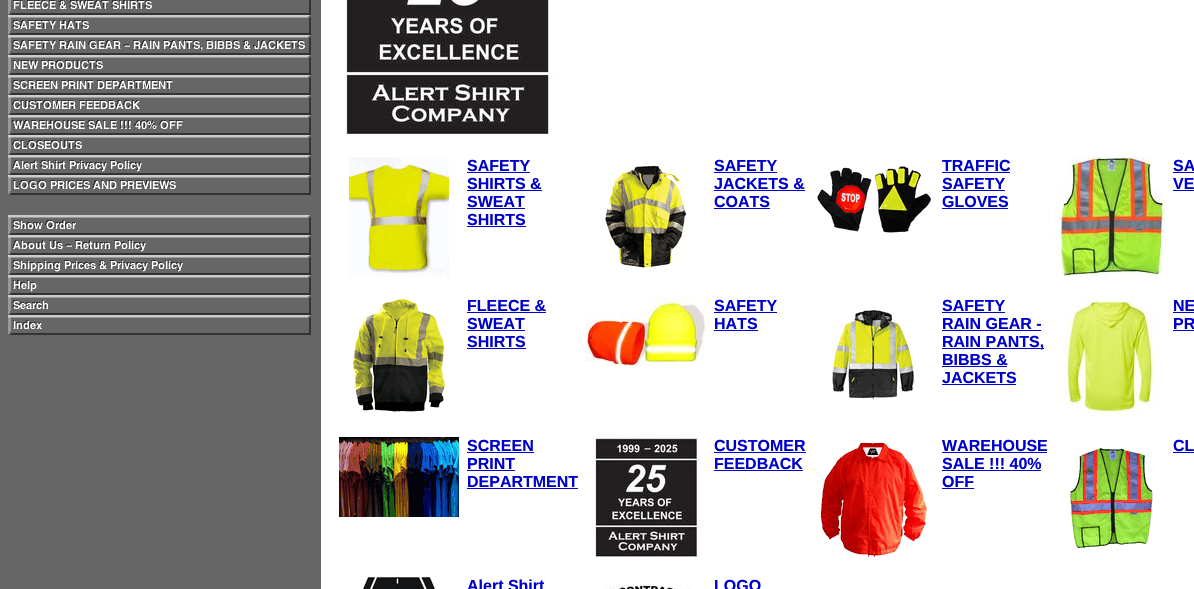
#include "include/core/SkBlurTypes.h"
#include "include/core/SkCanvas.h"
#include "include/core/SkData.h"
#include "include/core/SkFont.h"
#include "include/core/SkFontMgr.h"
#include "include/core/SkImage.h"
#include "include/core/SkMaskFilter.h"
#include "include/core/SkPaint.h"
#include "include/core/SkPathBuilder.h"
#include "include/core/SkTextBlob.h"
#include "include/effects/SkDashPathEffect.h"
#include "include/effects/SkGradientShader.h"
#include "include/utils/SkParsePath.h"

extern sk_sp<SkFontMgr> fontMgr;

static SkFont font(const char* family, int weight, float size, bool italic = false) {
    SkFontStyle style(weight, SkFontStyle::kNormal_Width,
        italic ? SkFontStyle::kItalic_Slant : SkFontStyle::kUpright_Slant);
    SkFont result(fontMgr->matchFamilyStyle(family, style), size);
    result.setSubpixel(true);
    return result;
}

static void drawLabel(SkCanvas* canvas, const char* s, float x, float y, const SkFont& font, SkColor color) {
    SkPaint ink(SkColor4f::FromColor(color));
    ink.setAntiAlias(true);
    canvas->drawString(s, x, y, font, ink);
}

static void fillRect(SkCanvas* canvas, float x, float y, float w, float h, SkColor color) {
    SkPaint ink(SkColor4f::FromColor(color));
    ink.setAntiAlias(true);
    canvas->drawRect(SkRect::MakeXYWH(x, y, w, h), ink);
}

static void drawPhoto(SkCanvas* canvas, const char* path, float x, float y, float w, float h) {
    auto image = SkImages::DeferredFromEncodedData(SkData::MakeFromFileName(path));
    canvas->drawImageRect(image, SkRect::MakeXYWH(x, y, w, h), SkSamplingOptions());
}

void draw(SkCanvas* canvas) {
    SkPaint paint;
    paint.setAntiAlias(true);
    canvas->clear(0xFFFFFFFF);
    fillRect(canvas, 0, 0, 321, 589, 0xFF666666);
    drawPhoto(canvas, "assets/img1.png", 8, 0, 303, 335);
    drawPhoto(canvas, "assets/img2.png", 343, 0, 211, 134);
    drawPhoto(canvas, "assets/img3.png", 349, 157, 100, 120);
    SkFont font1 = font("Liberation Sans", 700, 16);
    drawLabel(canvas, "SAFETY", 467, 171, font1, 0xFF0000CC);
    fillRect(canvas, 467, 172, 63, 1, 0xFF0000CC);
    drawLabel(canvas, "SHIRTS &", 467, 189, font1, 0xFF0000CC);
    fillRect(canvas, 467, 190, 75, 1, 0xFF0000CC);
    drawLabel(canvas, "SWEAT", 467, 207, font1, 0xFF0000CC);
    fillRect(canvas, 467, 208, 58, 1, 0xFF0000CC);
    drawLabel(canvas, "SHIRTS", 467, 225, font1, 0xFF0000CC);
    fillRect(canvas, 467, 226, 59, 1, 0xFF0000CC);
    drawPhoto(canvas, "assets/img4.png", 605, 165, 82, 103);
    drawLabel(canvas, "SAFETY", 714, 171, font1, 0xFF0000CC);
    fillRect(canvas, 714, 172, 63, 1, 0xFF0000CC);
    drawLabel(canvas, "JACKETS &", 714, 189, font1, 0xFF0000CC);
    fillRect(canvas, 714, 190, 91, 1, 0xFF0000CC);
    drawLabel(canvas, "COATS", 714, 207, font1, 0xFF0000CC);
    fillRect(canvas, 714, 208, 56, 1, 0xFF0000CC);
    drawPhoto(canvas, "assets/img5.png", 817, 166, 114, 67);
    drawLabel(canvas, "TRAFFIC", 942, 171, font1, 0xFF0000CC);
    fillRect(canvas, 942, 172, 68, 1, 0xFF0000CC);
    drawLabel(canvas, "SAFETY", 942, 189, font1, 0xFF0000CC);
    fillRect(canvas, 942, 190, 63, 1, 0xFF0000CC);
    drawLabel(canvas, "GLOVES", 942, 207, font1, 0xFF0000CC);
    fillRect(canvas, 942, 208, 66, 1, 0xFF0000CC);
    drawPhoto(canvas, "assets/img6.png", 1055, 157, 110, 120);
    drawLabel(canvas, "SA", 1173, 171, font1, 0xFF0000CC);
    fillRect(canvas, 1173, 172, 21, 1, 0xFF0000CC);
    drawLabel(canvas, "VE", 1173, 189, font1, 0xFF0000CC);
    fillRect(canvas, 1173, 190, 21, 1, 0xFF0000CC);
    drawPhoto(canvas, "assets/img7.png", 353, 299, 92, 113);
    drawLabel(canvas, "FLEECE &", 467, 311, font1, 0xFF0000CC);
    fillRect(canvas, 467, 312, 79, 1, 0xFF0000CC);
    drawLabel(canvas, "SWEAT", 467, 329, font1, 0xFF0000CC);
    fillRect(canvas, 467, 330, 58, 1, 0xFF0000CC);
    drawLabel(canvas, "SHIRTS", 467, 347, font1, 0xFF0000CC);
    fillRect(canvas, 467, 348, 59, 1, 0xFF0000CC);
    drawPhoto(canvas, "assets/img8.png", 586, 297, 120, 69);
    drawLabel(canvas, "SAFETY", 714, 311, font1, 0xFF0000CC);
    fillRect(canvas, 714, 312, 63, 1, 0xFF0000CC);
    drawLabel(canvas, "HATS", 714, 329, font1, 0xFF0000CC);
    fillRect(canvas, 714, 330, 44, 1, 0xFF0000CC);
    drawPhoto(canvas, "assets/img9.png", 832, 310, 82, 90);
    drawLabel(canvas, "SAFETY", 942, 311, font1, 0xFF0000CC);
    fillRect(canvas, 942, 312, 63, 1, 0xFF0000CC);
    drawLabel(canvas, "RAIN GEAR -", 942, 329, font1, 0xFF0000CC);
    fillRect(canvas, 942, 330, 99, 1, 0xFF0000CC);
    fillRect(canvas, 942, 348, 102, 1, 0xFF0000CC);
    drawLabel(canvas, "RAIN PANTS,", 942, 347, font1, 0xFF0000CC);
    drawLabel(canvas, "BIBBS &", 942, 365, font1, 0xFF0000CC);
    fillRect(canvas, 942, 366, 65, 1, 0xFF0000CC);
    drawLabel(canvas, "JACKETS", 942, 383, font1, 0xFF0000CC);
    fillRect(canvas, 942, 384, 74, 1, 0xFF0000CC);
    drawPhoto(canvas, "assets/img10.png", 1062, 297, 96, 120);
    drawLabel(canvas, "NE", 1173, 311, font1, 0xFF0000CC);
    fillRect(canvas, 1173, 312, 21, 1, 0xFF0000CC);
    drawLabel(canvas, "PR", 1173, 329, font1, 0xFF0000CC);
    fillRect(canvas, 1173, 330, 21, 1, 0xFF0000CC);
    drawPhoto(canvas, "assets/img11.png", 339, 437, 120, 80);
    drawLabel(canvas, "SCREEN", 467, 451, font1, 0xFF0000CC);
    fillRect(canvas, 467, 452, 67, 1, 0xFF0000CC);
    drawLabel(canvas, "PRINT", 467, 469, font1, 0xFF0000CC);
    fillRect(canvas, 467, 470, 48, 1, 0xFF0000CC);
    drawLabel(canvas, "DEPARTMENT", 467, 487, font1, 0xFF0000CC);
    fillRect(canvas, 467, 488, 111, 1, 0xFF0000CC);
    drawPhoto(canvas, "assets/img12.png", 592, 437, 108, 120);
    drawLabel(canvas, "CUSTOMER", 714, 451, font1, 0xFF0000CC);
    fillRect(canvas, 714, 452, 92, 1, 0xFF0000CC);
    drawLabel(canvas, "FEEDBACK", 714, 469, font1, 0xFF0000CC);
    fillRect(canvas, 714, 470, 89, 1, 0xFF0000CC);
    drawPhoto(canvas, "assets/img13.png", 820, 442, 107, 115);
    drawLabel(canvas, "WAREHOUSE", 942, 451, font1, 0xFF0000CC);
    fillRect(canvas, 942, 452, 105, 1, 0xFF0000CC);
    drawLabel(canvas, "SALE !!! 40%", 942, 469, font1, 0xFF0000CC);
    fillRect(canvas, 942, 470, 99, 1, 0xFF0000CC);
    drawLabel(canvas, "OFF", 942, 487, font1, 0xFF0000CC);
    fillRect(canvas, 942, 488, 32, 1, 0xFF0000CC);
    drawPhoto(canvas, "assets/img14.png", 1070, 448, 83, 100);
    drawLabel(canvas, "CL", 1173, 451, font1, 0xFF0000CC);
    fillRect(canvas, 1173, 452, 21, 1, 0xFF0000CC);
    drawPhoto(canvas, "assets/img15.png", 361, 577, 76, 12);
    drawLabel(canvas, "Alert Shirt", 467, 591, font1, 0xFF0000CC);
    drawPhoto(canvas, "assets/img16.png", 602, 585, 88, 4);
    drawLabel(canvas, "LOGO", 714, 591, font1, 0xFF0000CC);
}
